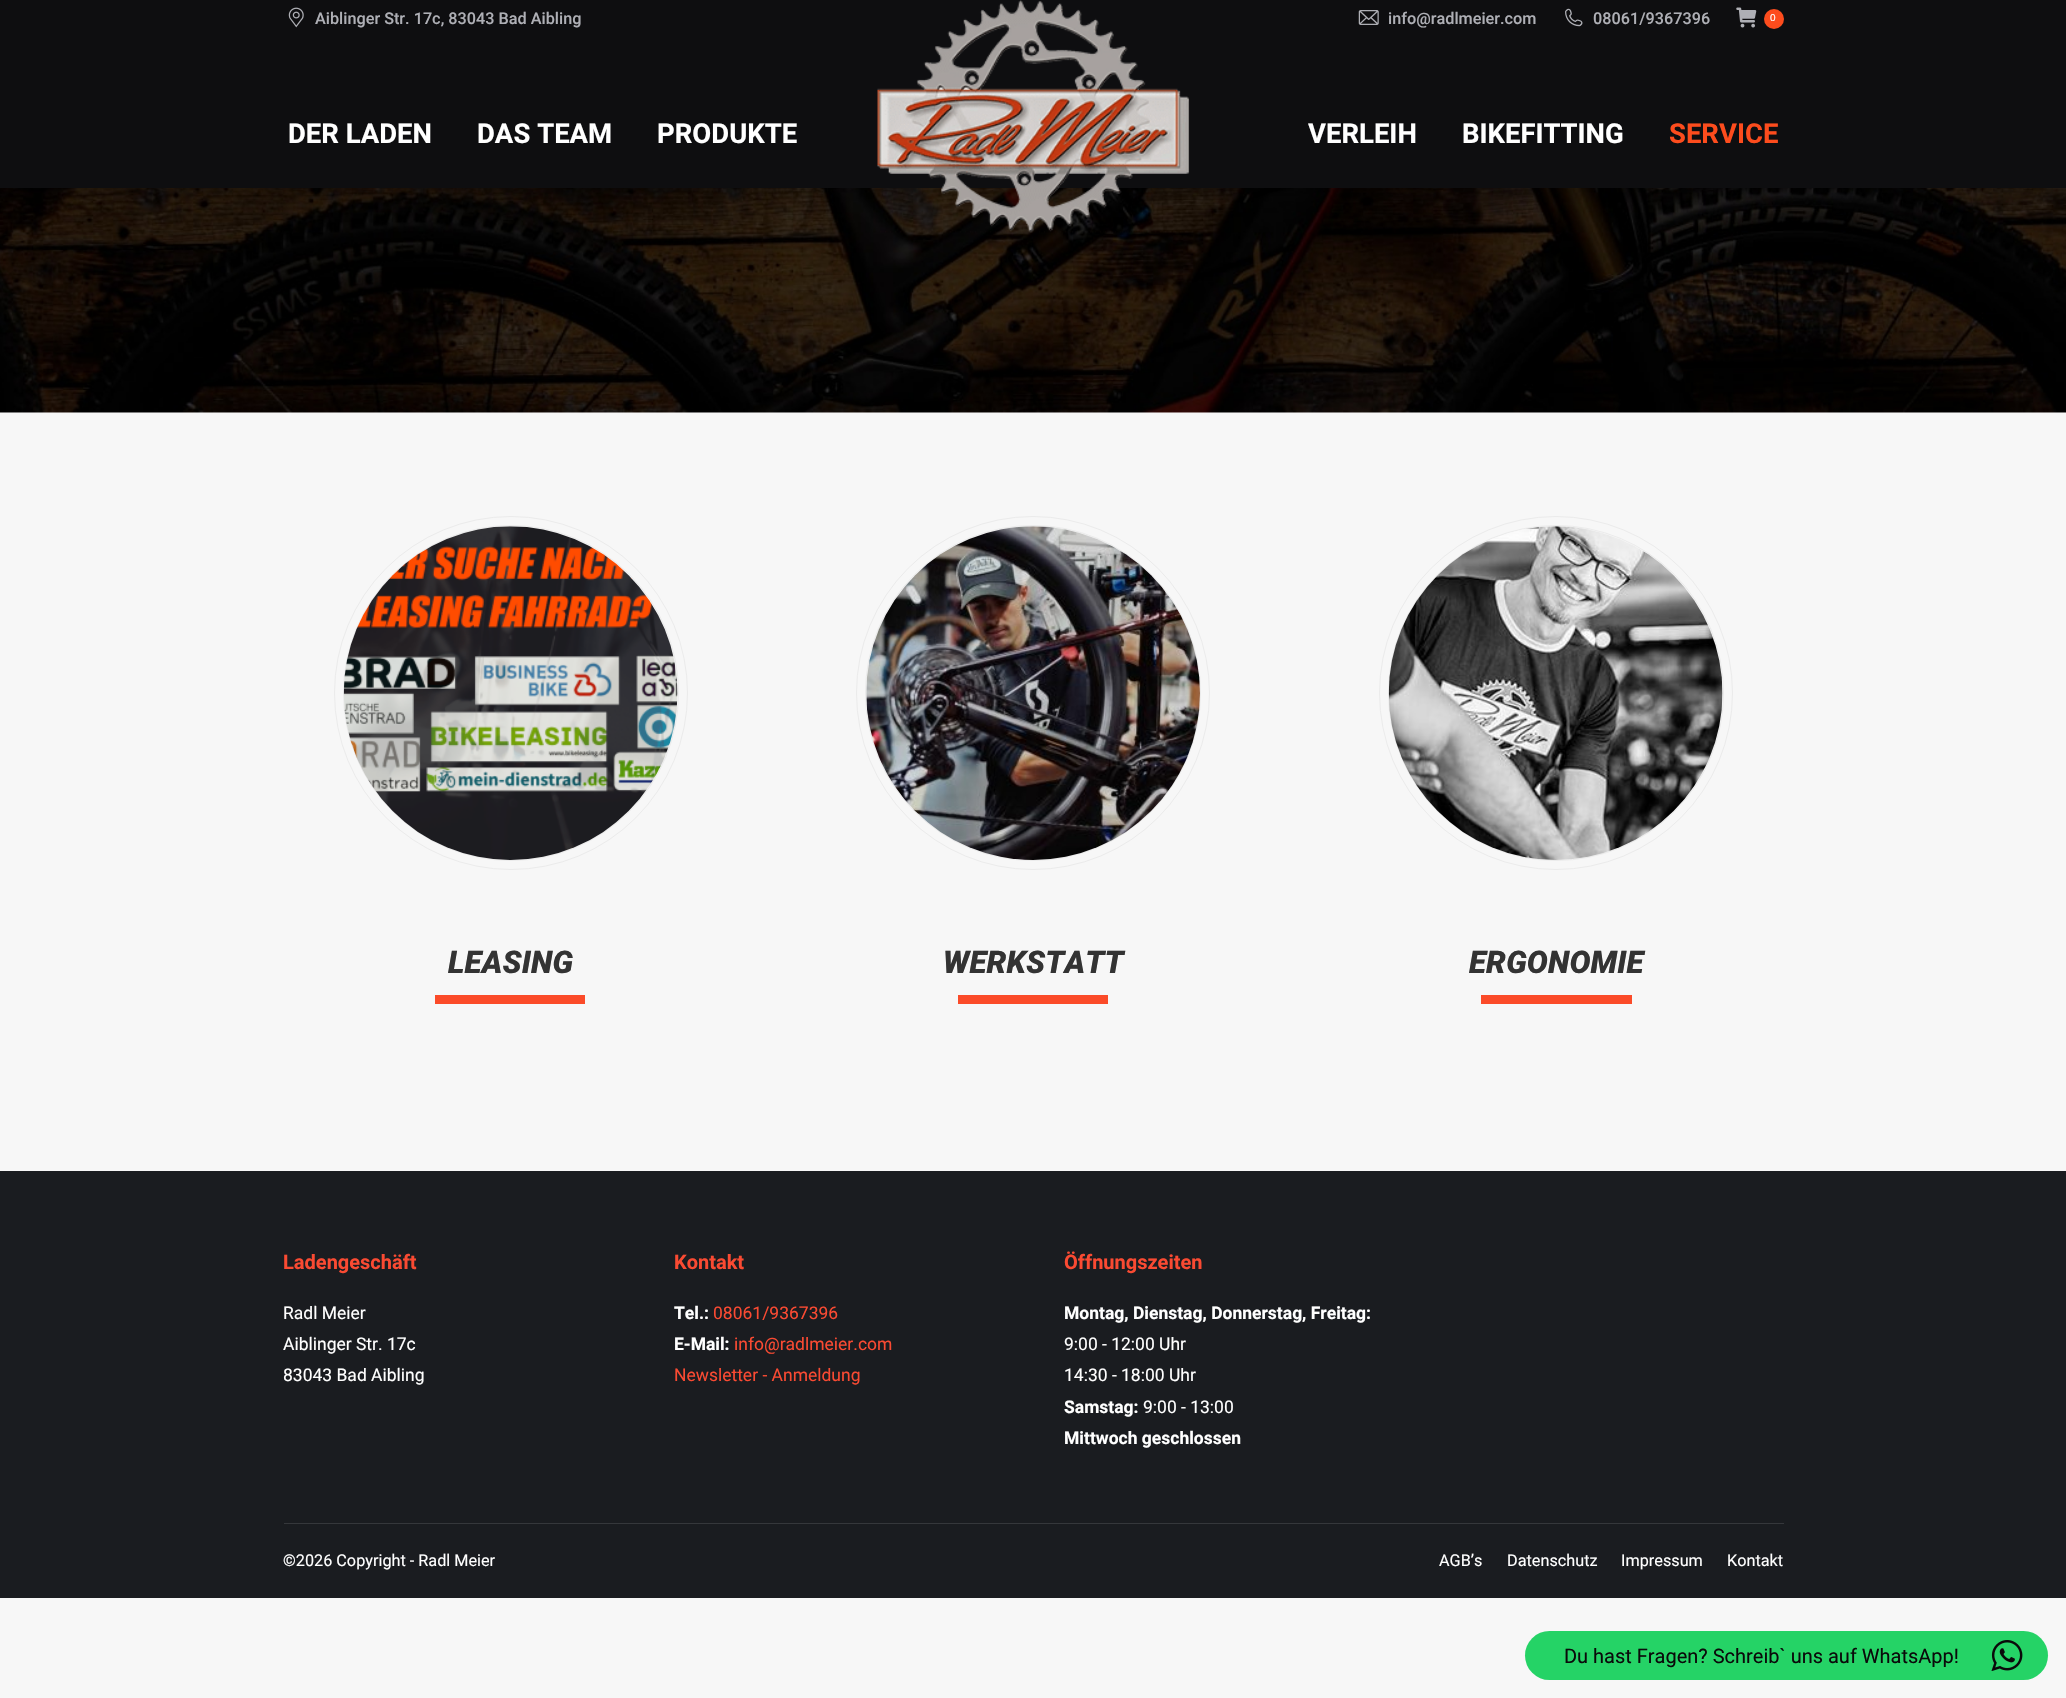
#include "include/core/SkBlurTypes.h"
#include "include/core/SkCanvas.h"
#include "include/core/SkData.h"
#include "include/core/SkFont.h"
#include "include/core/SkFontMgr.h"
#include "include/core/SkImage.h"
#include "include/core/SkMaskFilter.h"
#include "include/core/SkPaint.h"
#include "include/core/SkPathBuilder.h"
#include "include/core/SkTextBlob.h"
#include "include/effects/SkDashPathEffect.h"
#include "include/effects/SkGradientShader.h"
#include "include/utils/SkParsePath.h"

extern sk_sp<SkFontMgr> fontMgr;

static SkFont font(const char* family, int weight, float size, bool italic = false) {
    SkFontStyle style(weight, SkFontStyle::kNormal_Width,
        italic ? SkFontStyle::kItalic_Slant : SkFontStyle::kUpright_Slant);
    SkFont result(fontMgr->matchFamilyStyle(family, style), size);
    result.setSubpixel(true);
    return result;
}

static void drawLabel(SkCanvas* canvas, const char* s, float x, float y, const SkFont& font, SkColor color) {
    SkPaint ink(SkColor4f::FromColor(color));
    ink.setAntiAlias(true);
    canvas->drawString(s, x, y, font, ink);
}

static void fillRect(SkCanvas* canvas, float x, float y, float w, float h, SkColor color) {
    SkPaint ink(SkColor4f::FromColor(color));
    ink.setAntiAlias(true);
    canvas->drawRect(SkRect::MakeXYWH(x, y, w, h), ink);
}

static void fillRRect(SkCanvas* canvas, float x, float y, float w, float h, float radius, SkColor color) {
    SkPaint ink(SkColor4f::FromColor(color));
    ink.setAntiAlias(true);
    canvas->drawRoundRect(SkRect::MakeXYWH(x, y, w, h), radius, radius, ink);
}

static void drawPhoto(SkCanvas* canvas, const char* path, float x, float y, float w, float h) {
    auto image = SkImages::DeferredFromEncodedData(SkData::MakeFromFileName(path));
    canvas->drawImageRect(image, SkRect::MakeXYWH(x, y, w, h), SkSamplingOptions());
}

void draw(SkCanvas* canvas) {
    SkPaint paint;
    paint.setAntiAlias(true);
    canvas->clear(0xFFF7F7F7);
    fillRect(canvas, 0, 412, 2066, 1, 0xFFFFFFFF);
    drawPhoto(canvas, "assets/img6.png", 0, 188, 2066, 225);
    paint.setColor(0x33000000);
    paint.setMaskFilter(SkMaskFilter::MakeBlur(kNormal_SkBlurStyle, 6));
    canvas->drawRect(SkRect::MakeXYWH(-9, -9, 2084, 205), paint);
    paint.setMaskFilter(nullptr);
    fillRect(canvas, 0, 0, 2066, 188, 0xFF0E0E10);
    drawPhoto(canvas, "assets/img1.png", 288, 7, 16, 21);
    SkFont font1 = font("Roboto", 500, 16.25f);
    drawLabel(canvas, "Aiblinger Str. 17c, 83043 Bad Aibling", 315, 24, font1, 0xFFAEAFB5);
    drawPhoto(canvas, "assets/img2.png", 1358, 10, 21, 15);
    drawLabel(canvas, "info@radlmeier.com", 1388, 24, font1, 0xFFAEAFB5);
    drawPhoto(canvas, "assets/img3.png", 1565, 8, 18, 19);
    drawLabel(canvas, "08061/9367396", 1593, 24, font1, 0xFFAEAFB5);
    drawPhoto(canvas, "assets/img4.png", 1736, 7, 21, 21);
    paint.setColor(0xFFFD4C1D);
    canvas->drawCircle(1774, 19, 10, paint);
    SkFont font2 = font("Liberation Sans", 400, 10);
    drawLabel(canvas, "0", 1770, 21, font2, 0xFFFFFFFF);
    SkFont font3 = font("Roboto", 700, 27.5f);
    drawLabel(canvas, "DER LADEN", 288, 143, font3, 0xFFFFFFFF);
    drawLabel(canvas, "DAS TEAM", 477, 143, font3, 0xFFFFFFFF);
    drawLabel(canvas, "PRODUKTE", 657, 143, font3, 0xFFFFFFFF);
    drawPhoto(canvas, "assets/img5.png", 877, 0, 313, 233);
    drawLabel(canvas, "VERLEIH", 1308, 143, font3, 0xFFFFFFFF);
    drawLabel(canvas, "BIKEFITTING", 1462, 143, font3, 0xFFFFFFFF);
    drawLabel(canvas, "SERVICE", 1669, 143, font3, 0xFFFD4C1D);
    paint.setStroke(true);
    paint.setStrokeWidth(1);
    paint.setColor(0xFFEBEBEB);
    canvas->drawCircle(511, 693, 176.5f, paint);
    canvas->drawCircle(511, 693, 167.5f, paint);
    drawPhoto(canvas, "assets/img7.png", 343, 526, 335, 334);
    SkFont font4 = font("Roboto", 900, 31.25f, true);
    drawLabel(canvas, "LEASING", 448, 973, font4, 0xFF333333);
    fillRect(canvas, 435, 995, 150, 4, 0xFFFB4B29);
    fillRect(canvas, 581, 995, 4, 9, 0xFFFB4B29);
    fillRect(canvas, 435, 999, 150, 5, 0xFFFB4B29);
    canvas->drawCircle(1033, 693, 176.5f, paint);
    canvas->drawCircle(1033, 693, 167.5f, paint);
    drawPhoto(canvas, "assets/img8.png", 866, 526, 334, 334);
    drawLabel(canvas, "WERKSTATT", 943, 973, font4, 0xFF333333);
    fillRect(canvas, 958, 995, 150, 4, 0xFFFB4B29);
    fillRect(canvas, 1104, 995, 4, 9, 0xFFFB4B29);
    fillRect(canvas, 958, 999, 150, 5, 0xFFFB4B29);
    canvas->drawCircle(1556, 693, 176.5f, paint);
    canvas->drawCircle(1556, 693, 167.5f, paint);
    drawPhoto(canvas, "assets/img9.png", 1388, 526, 335, 334);
    drawLabel(canvas, "ERGONOMIE", 1469, 973, font4, 0xFF333333);
    fillRect(canvas, 1481, 995, 150, 4, 0xFFFB4B29);
    fillRect(canvas, 1628, 995, 4, 9, 0xFFFB4B29);
    fillRect(canvas, 1481, 999, 150, 5, 0xFFFB4B29);
    fillRect(canvas, 0, 1171, 2066, 427, 0xFF1A1C20);
    SkFont font5 = font("Roboto", 700, 20);
    drawLabel(canvas, "Ladengeschäft", 283, 1269, font5, 0xFFFA4A32);
    SkFont font6 = font("Roboto", 400, 17.5f);
    drawLabel(canvas, "Radl Meier", 283, 1319, font6, 0xFFFFFFFF);
    drawLabel(canvas, "Aiblinger Str. 17c", 283, 1350, font6, 0xFFFFFFFF);
    drawLabel(canvas, "83043 Bad Aibling", 283, 1381, font6, 0xFFFFFFFF);
    drawLabel(canvas, "Kontakt", 674, 1269, font5, 0xFFFA4A32);
    SkFont font7 = font("Roboto", 700, 17.5f);
    drawLabel(canvas, "Tel.:", 674, 1319, font7, 0xFFFFFFFF);
    drawLabel(canvas, "08061/9367396", 713, 1319, font6, 0xFFFA4A32);
    drawLabel(canvas, "E-Mail:", 674, 1350, font7, 0xFFFFFFFF);
    drawLabel(canvas, "info@radlmeier.com", 734, 1350, font6, 0xFFFA4A32);
    drawLabel(canvas, "Newsletter - Anmeldung", 674, 1381, font6, 0xFFFA4A32);
    drawLabel(canvas, "Öffnungszeiten", 1064, 1269, font5, 0xFFFA4A32);
    drawLabel(canvas, "Montag, Dienstag, Donnerstag, Freitag:", 1064, 1319, font7, 0xFFFFFFFF);
    drawLabel(canvas, "9:00 - 12:00 Uhr", 1064, 1350, font6, 0xFFFFFFFF);
    drawLabel(canvas, "14:30 - 18:00 Uhr", 1064, 1381, font6, 0xFFFFFFFF);
    drawLabel(canvas, "Samstag:", 1064, 1413, font7, 0xFFFFFFFF);
    drawLabel(canvas, "9:00 - 13:00", 1143, 1413, font6, 0xFFFFFFFF);
    drawLabel(canvas, "Mittwoch geschlossen", 1064, 1444, font7, 0xFFFFFFFF);
    fillRect(canvas, 284, 1523, 1500, 1, 0xFF35373B);
    SkFont font8 = font("Roboto", 400, 16.25f);
    drawLabel(canvas, "©2026 Copyright - Radl Meier", 283, 1566, font8, 0xFFFFFFFF);
    drawLabel(canvas, "AGB’s", 1439, 1566, font8, 0xFFFFFFFF);
    drawLabel(canvas, "Datenschutz", 1507, 1566, font8, 0xFFFFFFFF);
    drawLabel(canvas, "Impressum", 1621, 1566, font8, 0xFFFFFFFF);
    drawLabel(canvas, "Kontakt", 1727, 1566, font8, 0xFFFFFFFF);
    fillRRect(canvas, 1525, 1631, 523, 49, 24.5f, 0xFF25D366);
    SkFont font9 = font("Roboto", 400, 20);
    drawLabel(canvas, "Du hast Fragen? Schreib` uns auf WhatsApp!", 1564, 1663, font9, 0xFF0A0A0A);
    drawPhoto(canvas, "assets/img10.png", 1991, 1640, 32, 31);
}
